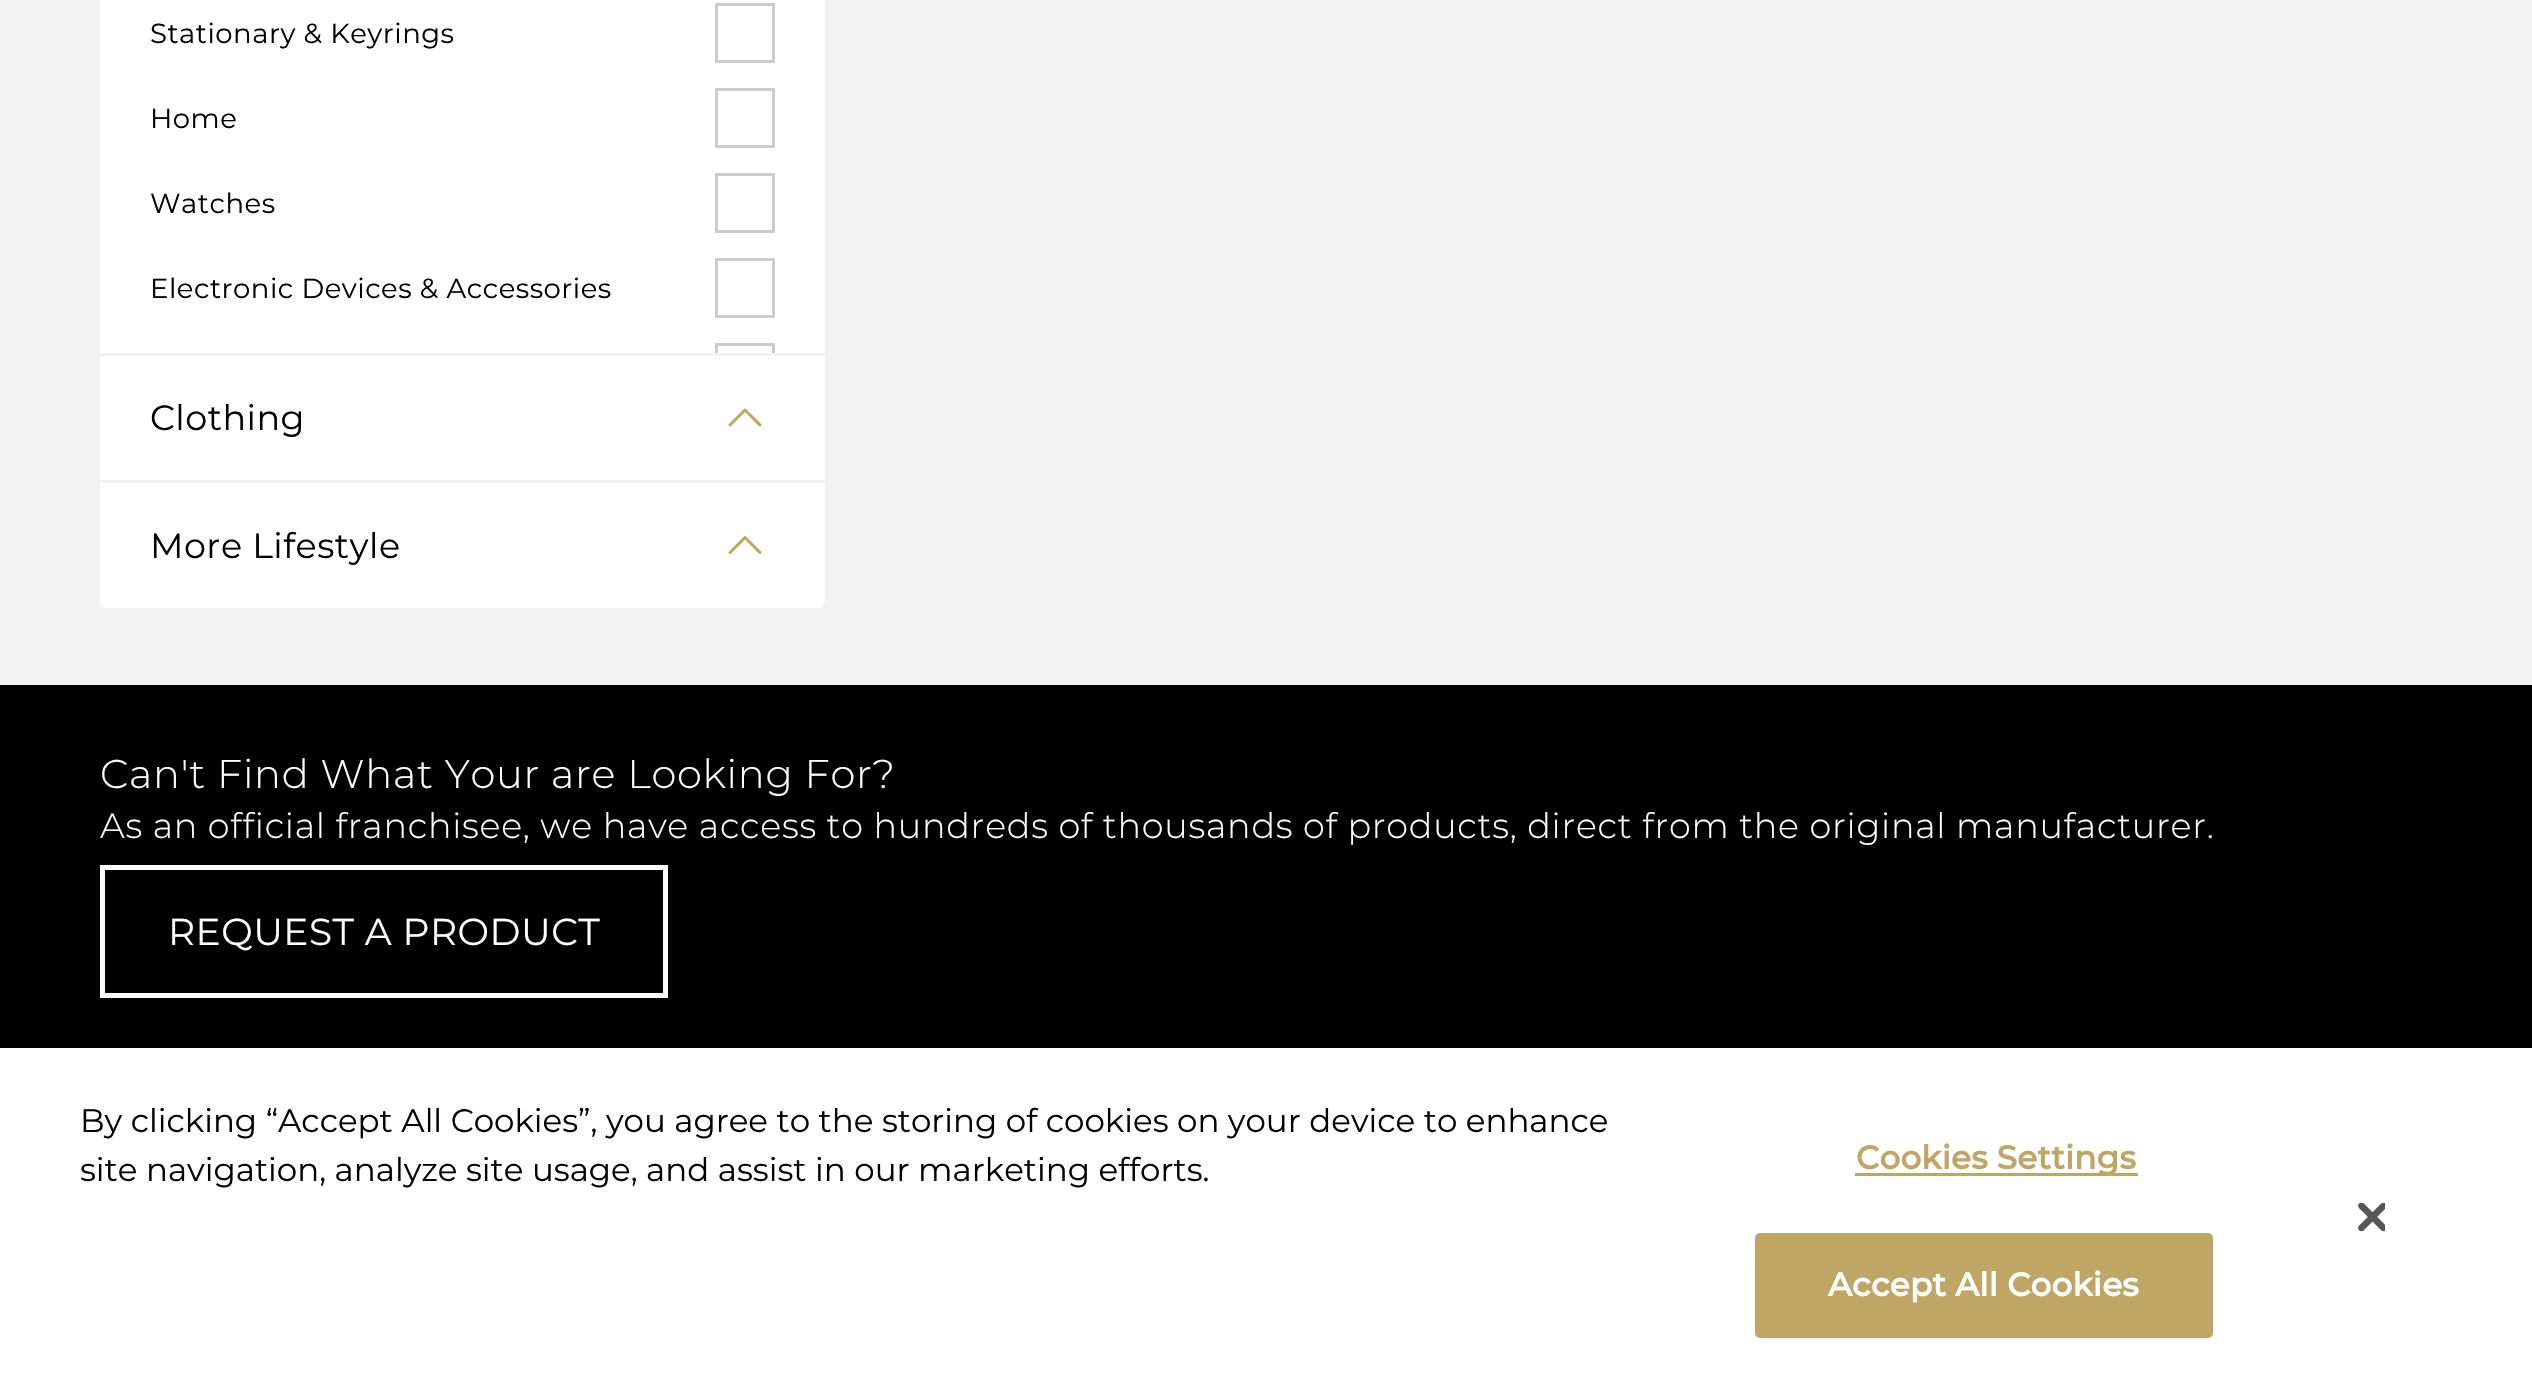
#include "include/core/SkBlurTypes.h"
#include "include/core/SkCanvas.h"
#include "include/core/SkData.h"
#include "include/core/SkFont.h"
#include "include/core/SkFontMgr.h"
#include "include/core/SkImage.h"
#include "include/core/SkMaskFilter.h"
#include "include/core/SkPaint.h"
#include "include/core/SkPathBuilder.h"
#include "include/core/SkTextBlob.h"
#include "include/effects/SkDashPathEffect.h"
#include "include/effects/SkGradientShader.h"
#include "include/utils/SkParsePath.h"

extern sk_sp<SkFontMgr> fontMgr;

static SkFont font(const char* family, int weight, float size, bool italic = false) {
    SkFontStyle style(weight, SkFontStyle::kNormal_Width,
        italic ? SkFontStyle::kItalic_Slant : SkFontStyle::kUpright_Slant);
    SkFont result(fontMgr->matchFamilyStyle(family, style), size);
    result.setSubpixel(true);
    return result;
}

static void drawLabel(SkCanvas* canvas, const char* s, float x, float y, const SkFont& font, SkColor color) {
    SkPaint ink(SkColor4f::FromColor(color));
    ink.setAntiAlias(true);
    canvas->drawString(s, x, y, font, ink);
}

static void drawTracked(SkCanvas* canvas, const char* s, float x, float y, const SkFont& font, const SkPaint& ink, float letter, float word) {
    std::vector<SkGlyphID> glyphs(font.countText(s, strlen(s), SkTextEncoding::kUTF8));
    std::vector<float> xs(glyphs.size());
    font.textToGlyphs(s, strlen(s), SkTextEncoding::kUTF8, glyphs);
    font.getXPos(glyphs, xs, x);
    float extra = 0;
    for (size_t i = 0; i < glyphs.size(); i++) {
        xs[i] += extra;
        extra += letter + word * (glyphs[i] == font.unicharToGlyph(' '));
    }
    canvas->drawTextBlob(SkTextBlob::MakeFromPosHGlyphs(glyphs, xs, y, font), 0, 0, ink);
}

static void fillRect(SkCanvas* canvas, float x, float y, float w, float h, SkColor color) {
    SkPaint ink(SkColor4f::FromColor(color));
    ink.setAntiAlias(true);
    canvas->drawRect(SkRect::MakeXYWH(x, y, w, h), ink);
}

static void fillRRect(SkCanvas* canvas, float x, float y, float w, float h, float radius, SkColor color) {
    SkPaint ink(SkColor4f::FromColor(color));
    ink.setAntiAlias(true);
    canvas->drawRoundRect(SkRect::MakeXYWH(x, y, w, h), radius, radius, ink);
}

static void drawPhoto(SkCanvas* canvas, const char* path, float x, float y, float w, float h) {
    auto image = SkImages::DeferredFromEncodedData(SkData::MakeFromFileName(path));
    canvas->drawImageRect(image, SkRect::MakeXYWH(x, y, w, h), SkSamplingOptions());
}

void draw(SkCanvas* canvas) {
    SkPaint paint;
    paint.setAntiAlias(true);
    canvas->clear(0xFFF2F2F2);
    fillRRect(canvas, 100, -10, 725, 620, 10, 0xFFFFFFFF);
    fillRect(canvas, 100, 353, 725, 3, 0xFFF2F2F2);
    SkFont font1 = font("Montserrat", 400, 27.5f);
    paint.setColor(0xFF000000);
    drawTracked(canvas, "Stationary & Keyrings", 150, 43, font1, paint, 0.5f, 0);
    paint.setStroke(true);
    paint.setStrokeWidth(3);
    paint.setColor(0xFFCCCCCC);
    canvas->drawRect(SkRect::MakeXYWH(716.5f, 4.5f, 57, 57), paint);
    paint.setStroke(false);
    paint.setColor(0xFF000000);
    drawTracked(canvas, "Home", 150, 128, font1, paint, 0.5f, 0);
    paint.setStroke(true);
    paint.setColor(0xFFCCCCCC);
    canvas->drawRect(SkRect::MakeXYWH(716.5f, 89.5f, 57, 57), paint);
    paint.setStroke(false);
    paint.setColor(0xFF000000);
    drawTracked(canvas, "Watches", 150, 213, font1, paint, 0.5f, 0);
    paint.setStroke(true);
    paint.setColor(0xFFCCCCCC);
    canvas->drawRect(SkRect::MakeXYWH(716.5f, 174.5f, 57, 57), paint);
    paint.setStroke(false);
    paint.setColor(0xFF000000);
    drawTracked(canvas, "Electronic Devices & Accessories", 150, 298, font1, paint, 0.5f, 0);
    paint.setStroke(true);
    paint.setColor(0xFFCCCCCC);
    canvas->drawRect(SkRect::MakeXYWH(716.5f, 259.5f, 57, 57), paint);
    canvas->save();
    canvas->clipRect(SkRect::MakeXYWH(100, 0, 725, 353));
    canvas->drawRect(SkRect::MakeXYWH(716.5f, 344.5f, 57, 57), paint);
    canvas->restore();
    fillRect(canvas, 100, 480, 725, 3, 0xFFF2F2F2);
    SkFont font2 = font("Montserrat", 400, 35);
    paint.setStroke(false);
    paint.setColor(0xFF000000);
    drawTracked(canvas, "Clothing", 150, 430, font2, paint, 0.5f, 0);
    drawPhoto(canvas, "assets/img1.png", 728, 408, 34, 19);
    fillRect(canvas, 100, 608, 725, 2, 0xFFF2F2F2);
    drawTracked(canvas, "More Lifestyle", 150, 558, font2, paint, 0.5f, 0);
    drawPhoto(canvas, "assets/img2.png", 728, 536, 34, 18);
    fillRect(canvas, 0, 685, 2532, 363, 0xFF000000);
    SkFont font3 = font("Montserrat", 300, 40);
    paint.setColor(0xFFFFFFFF);
    drawTracked(canvas, "Can't Find What Your are Looking For?", 100, 788, font3, paint, 0.75f, 0);
    SkFont font4 = font("Montserrat", 300, 35);
    drawTracked(canvas, "As an official franchisee, we have access to hundreds of thousands of products, direct from the original manufacturer.", 100, 838, font4, paint, 0.75f, 0);
    paint.setStroke(true);
    paint.setStrokeWidth(5);
    canvas->drawRect(SkRect::MakeXYWH(102.5f, 867.5f, 563, 128), paint);
    SkFont font5 = font("Montserrat", 400, 37.5f);
    paint.setStroke(false);
    drawTracked(canvas, "REQUEST A PRODUCT", 168, 945, font5, paint, 0.5f, 0);
    fillRect(canvas, 0, 1048, 2532, 339, 0xFFFFFFFF);
    SkFont font6 = font("Montserrat", 400, 32.5f);
    drawLabel(canvas, "By clicking “Accept All Cookies”, you agree to the storing of cookies on your device to enhance", 80, 1132, font6, 0xFF000000);
    drawLabel(canvas, "site navigation, analyze site usage, and assist in our marketing efforts.", 80, 1181, font6, 0xFF000000);
    fillRect(canvas, 1855, 1173, 283, 3, 0xFFC0A665);
    SkFont font7 = font("Montserrat", 700, 32.5f);
    paint.setColor(0xFFC0A665);
    drawTracked(canvas, "Cookies Settings", 1856, 1169, font7, paint, 0.3f, 0);
    canvas->drawRoundRect(SkRect::MakeXYWH(1756.5f, 1234.5f, 455, 102), 3.5f, 3.5f, paint);
    paint.setStroke(true);
    paint.setStrokeWidth(3);
    canvas->drawRoundRect(SkRect::MakeXYWH(1756.5f, 1234.5f, 455, 102), 3.5f, 3.5f, paint);
    paint.setStroke(false);
    paint.setColor(0xFFFFFFFF);
    drawTracked(canvas, "Accept All Cookies", 1828, 1296, font7, paint, 0.3f, 0);
    drawPhoto(canvas, "assets/img3.png", 2358, 1203, 27, 29);
}
